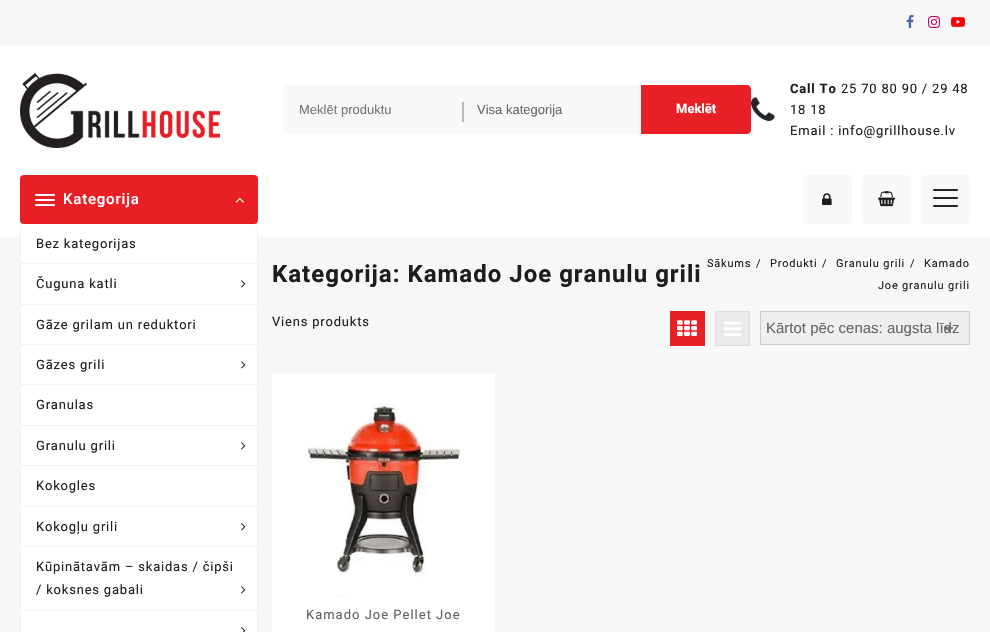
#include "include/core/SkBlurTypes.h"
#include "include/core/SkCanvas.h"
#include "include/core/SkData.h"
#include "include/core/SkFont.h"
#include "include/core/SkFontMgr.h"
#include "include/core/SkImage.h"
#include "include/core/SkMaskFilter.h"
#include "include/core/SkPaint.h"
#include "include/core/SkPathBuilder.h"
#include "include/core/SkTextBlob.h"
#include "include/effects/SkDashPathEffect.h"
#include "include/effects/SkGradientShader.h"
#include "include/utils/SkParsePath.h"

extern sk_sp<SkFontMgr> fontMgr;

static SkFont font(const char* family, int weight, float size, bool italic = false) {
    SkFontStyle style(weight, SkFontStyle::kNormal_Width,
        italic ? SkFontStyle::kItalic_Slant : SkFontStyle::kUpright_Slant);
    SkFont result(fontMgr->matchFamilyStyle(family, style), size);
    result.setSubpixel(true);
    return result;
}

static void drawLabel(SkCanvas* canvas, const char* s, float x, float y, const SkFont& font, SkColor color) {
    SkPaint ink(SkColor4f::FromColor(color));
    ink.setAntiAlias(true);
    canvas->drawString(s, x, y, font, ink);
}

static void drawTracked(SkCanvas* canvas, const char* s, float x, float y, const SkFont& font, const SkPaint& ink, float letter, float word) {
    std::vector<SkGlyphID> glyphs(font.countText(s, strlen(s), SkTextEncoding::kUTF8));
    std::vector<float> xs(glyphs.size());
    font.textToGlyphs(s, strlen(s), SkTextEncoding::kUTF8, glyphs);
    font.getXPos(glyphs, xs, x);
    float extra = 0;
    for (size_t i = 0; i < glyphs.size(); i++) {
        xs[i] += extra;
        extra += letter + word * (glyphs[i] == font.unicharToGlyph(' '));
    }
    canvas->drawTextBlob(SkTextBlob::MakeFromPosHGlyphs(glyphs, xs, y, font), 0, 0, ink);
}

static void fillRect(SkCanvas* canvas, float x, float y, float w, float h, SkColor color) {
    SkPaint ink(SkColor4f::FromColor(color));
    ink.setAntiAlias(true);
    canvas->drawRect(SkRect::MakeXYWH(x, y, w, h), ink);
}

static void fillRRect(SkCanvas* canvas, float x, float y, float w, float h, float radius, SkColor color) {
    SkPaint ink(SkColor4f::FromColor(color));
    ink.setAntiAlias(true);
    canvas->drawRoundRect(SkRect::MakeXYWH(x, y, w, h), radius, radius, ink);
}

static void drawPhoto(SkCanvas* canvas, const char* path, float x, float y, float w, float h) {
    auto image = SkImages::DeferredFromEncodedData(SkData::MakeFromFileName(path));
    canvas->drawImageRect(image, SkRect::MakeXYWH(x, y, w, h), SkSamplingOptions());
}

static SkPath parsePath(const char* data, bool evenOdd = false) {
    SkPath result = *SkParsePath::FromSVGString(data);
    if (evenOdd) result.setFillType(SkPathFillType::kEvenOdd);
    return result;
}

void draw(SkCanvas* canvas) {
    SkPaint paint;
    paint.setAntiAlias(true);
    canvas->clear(0xFFF7F7F7);
    fillRect(canvas, 0, 45, 990, 192, 0xFFFFFFFF);
    drawPhoto(canvas, "assets/img1.png", 906, 15, 8, 13);
    drawPhoto(canvas, "assets/img2.png", 928, 16, 12, 12);
    drawPhoto(canvas, "assets/img3.png", 951, 17, 14, 10);
    drawPhoto(canvas, "assets/img4.png", 20, 72, 200, 76);
    fillRRect(canvas, 283, 85, 468, 49, 5, 0xFFF7F8F9);
    paint.setColor(0xFFF7F8F9);
    canvas->drawPath(parsePath("M287 85H462V134H287C285 134 283 132 283 130V89C283 87 285 85 287 85Z"), paint);
    SkFont font1 = font("Liberation Sans", 400, 13);
    drawLabel(canvas, "Meklēt produktu", 299, 114, font1, 0xFF757575);
    fillRect(canvas, 462, 102, 2, 20, 0xFFBBBBBB);
    drawLabel(canvas, "Visa kategorija", 477, 114, font1, 0xFF666666);
    paint.setColor(0xFFE81F25);
    canvas->drawPath(parsePath("M641 85H747C749 85 751 87 751 89V130C751 132 749 134 747 134H641Z"), paint);
    SkFont font2 = font("Roboto", 700, 13);
    drawLabel(canvas, "Meklēt", 676, 113, font2, 0xFFFFFFFF);
    drawPhoto(canvas, "assets/img5.png", 751, 97, 24, 24);
    paint.setColor(0xFF1C1D1E);
    drawTracked(canvas, "Call To", 790, 93, font2, paint, 0.8f, 0);
    SkFont font3 = font("Roboto", 400, 13);
    drawTracked(canvas, "25 70 80 90 / 29 48", 841, 93, font3, paint, 0.8f, 0);
    drawTracked(canvas, "18 18", 790, 114, font3, paint, 0.8f, 0);
    drawTracked(canvas, "Email : info@grillhouse.lv", 790, 135, font3, paint, 0.8f, 0);
    fillRRect(canvas, 20, 175, 238, 49, 4, 0xFFE81F25);
    fillRRect(canvas, 35, 194, 20, 2, 1, 0xFFFFFFFF);
    fillRRect(canvas, 35, 199, 20, 2, 1, 0xFFFFFFFF);
    fillRRect(canvas, 35, 204, 20, 2, 1, 0xFFFFFFFF);
    SkFont font4 = font("Roboto", 500, 15);
    paint.setColor(0xFFFFFFFF);
    drawTracked(canvas, "Kategorija", 63, 204, font4, paint, 0.8f, 0);
    drawPhoto(canvas, "assets/img6.png", 235, 197, 9, 6);
    fillRRect(canvas, 20, 224, 238, 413, 5, 0xFFFFFFFF);
    paint.setColor(0xFFF1F1F1);
    canvas->drawPath(parsePath("M25 224H253C256 224 258 226 258 229V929C258 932 256 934 253 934H25C22 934 20 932 20 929V229C20 226 22 224 25 224ZM25 224H253C255 224 257 226 257 229V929C257 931 255 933 253 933H25C23 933 21 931 21 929V229C21 226 23 224 25 224Z", true), paint);
    fillRect(canvas, 21, 263, 236, 1, 0xFFF1F1F1);
    paint.setColor(0xFF1C1D1E);
    drawTracked(canvas, "Bez kategorijas", 36, 248, font3, paint, 0.8f, 0);
    fillRect(canvas, 21, 304, 236, 1, 0xFFF1F1F1);
    drawTracked(canvas, "Čuguna katli", 36, 288, font3, paint, 0.8f, 0);
    drawPhoto(canvas, "assets/img7.png", 241, 280, 5, 8);
    fillRect(canvas, 21, 344, 236, 1, 0xFFF1F1F1);
    drawTracked(canvas, "Gāze grilam un reduktori", 36, 329, font3, paint, 0.8f, 0);
    fillRect(canvas, 21, 384, 236, 1, 0xFFF1F1F1);
    drawTracked(canvas, "Gāzes grili", 36, 369, font3, paint, 0.8f, 0);
    drawPhoto(canvas, "assets/img7.png", 241, 361, 5, 8);
    fillRect(canvas, 21, 425, 236, 1, 0xFFF1F1F1);
    drawTracked(canvas, "Granulas", 36, 409, font3, paint, 0.8f, 0);
    fillRect(canvas, 21, 465, 236, 1, 0xFFF1F1F1);
    drawTracked(canvas, "Granulu grili", 36, 450, font3, paint, 0.8f, 0);
    drawPhoto(canvas, "assets/img7.png", 241, 442, 5, 8);
    fillRect(canvas, 21, 506, 236, 1, 0xFFF1F1F1);
    drawTracked(canvas, "Kokogles", 36, 490, font3, paint, 0.8f, 0);
    fillRect(canvas, 21, 546, 236, 1, 0xFFF1F1F1);
    drawTracked(canvas, "Kokogļu grili", 36, 531, font3, paint, 0.8f, 0);
    drawPhoto(canvas, "assets/img7.png", 241, 523, 5, 8);
    fillRect(canvas, 21, 610, 236, 1, 0xFFF1F1F1);
    drawTracked(canvas, "Kūpinātavām – skaidas / čipši", 36, 571, font3, paint, 0.8f, 0);
    drawTracked(canvas, "/ koksnes gabali", 36, 594, font3, paint, 0.8f, 0);
    drawPhoto(canvas, "assets/img7.png", 241, 586, 5, 8);
    drawPhoto(canvas, "assets/img8.png", 241, 627, 5, 5);
    fillRRect(canvas, 803, 175, 49, 49, 4, 0xFFF7F8F9);
    drawPhoto(canvas, "assets/img9.png", 822, 193, 10, 12);
    fillRRect(canvas, 862, 175, 49, 49, 4, 0xFFF7F8F9);
    drawPhoto(canvas, "assets/img10.png", 878, 191, 18, 16);
    fillRRect(canvas, 921, 175, 49, 49, 4, 0xFFF7F8F9);
    fillRRect(canvas, 933, 189, 25, 2, 1, 0xFF242424);
    fillRRect(canvas, 933, 197, 25, 2, 1, 0xFF242424);
    fillRRect(canvas, 933, 205, 25, 2, 1, 0xFF242424);
    SkFont font5 = font("Roboto", 700, 24);
    drawTracked(canvas, "Kategorija: Kamado Joe granulu grili", 272, 282, font5, paint, 1, 0);
    SkFont font6 = font("Roboto", 400, 11);
    drawTracked(canvas, "Sākums", 707, 267, font6, paint, 0.8f, 0);
    drawTracked(canvas, "/", 756, 267, font6, paint, 0.8f, 0);
    drawTracked(canvas, "Produkti", 770, 267, font6, paint, 0.8f, 0);
    drawTracked(canvas, "/", 822, 267, font6, paint, 0.8f, 0);
    drawTracked(canvas, "Granulu grili", 836, 267, font6, paint, 0.8f, 0);
    drawTracked(canvas, "/", 910, 267, font6, paint, 0.8f, 0);
    drawTracked(canvas, "Kamado", 924, 267, font6, paint, 0.8f, 0);
    drawTracked(canvas, "Joe granulu grili", 878, 289, font6, paint, 0.8f, 0);
    drawTracked(canvas, "Viens produkts", 272, 326, font3, paint, 0.8f, 0);
    fillRect(canvas, 670, 311, 35, 35, 0xFFE81F25);
    drawPhoto(canvas, "assets/img11.png", 677, 320, 20, 16);
    paint.setColor(0xFFEBE9EB);
    canvas->drawRect(SkRect::MakeXYWH(715.5f, 311.5f, 34, 34), paint);
    paint.setStroke(true);
    paint.setStrokeWidth(1);
    paint.setColor(0xFFDDDDDD);
    canvas->drawRect(SkRect::MakeXYWH(715.5f, 311.5f, 34, 34), paint);
    drawPhoto(canvas, "assets/img12.png", 724, 321, 17, 15);
    fillRect(canvas, 761, 312, 208, 32, 0xFFEFEFEF);
    paint.setStroke(false);
    {
        const SkColor colors[] = {0xFF808080, 0xFFEFEFEF};
        const float stops[] = {0.5f, 0.5f};
        const SkPoint ends[] = {{949, 327}, {954, 332}};
        paint.setShader(SkGradientShader::MakeLinear(ends, colors, stops, 2, SkTileMode::kClamp));
        paint.setAlpha(255);
    }
    canvas->drawRect(SkRect::MakeXYWH(949, 327, 5, 4), paint);
    {
        const SkColor colors[] = {0xFFEFEFEF, 0xFF808080};
        const float stops[] = {0.5f, 0.5f};
        const SkPoint ends[] = {{944, 332}, {949, 327}};
        paint.setShader(SkGradientShader::MakeLinear(ends, colors, stops, 2, SkTileMode::kClamp));
        paint.setAlpha(255);
    }
    canvas->drawRect(SkRect::MakeXYWH(944, 327, 5, 4), paint);
    paint.setStroke(true);
    paint.setShader(nullptr);
    paint.setColor(0xFFCCCCCC);
    canvas->drawRect(SkRect::MakeXYWH(760.5f, 311.5f, 209, 33), paint);
    SkFont font7 = font("Liberation Sans", 400, 15);
    drawLabel(canvas, "Kārtot pēc cenas: augsta līdz", 766, 333, font7, 0xFF666666);
    fillRect(canvas, 272, 373, 223, 259, 0xFFFFFFFF);
    drawPhoto(canvas, "assets/img13.png", 308, 404, 153, 193);
    paint.setStroke(false);
    paint.setColor(0xFF626060);
    drawTracked(canvas, "Kamado Joe Pellet Joe", 306, 619, font3, paint, 1, 0);
}
